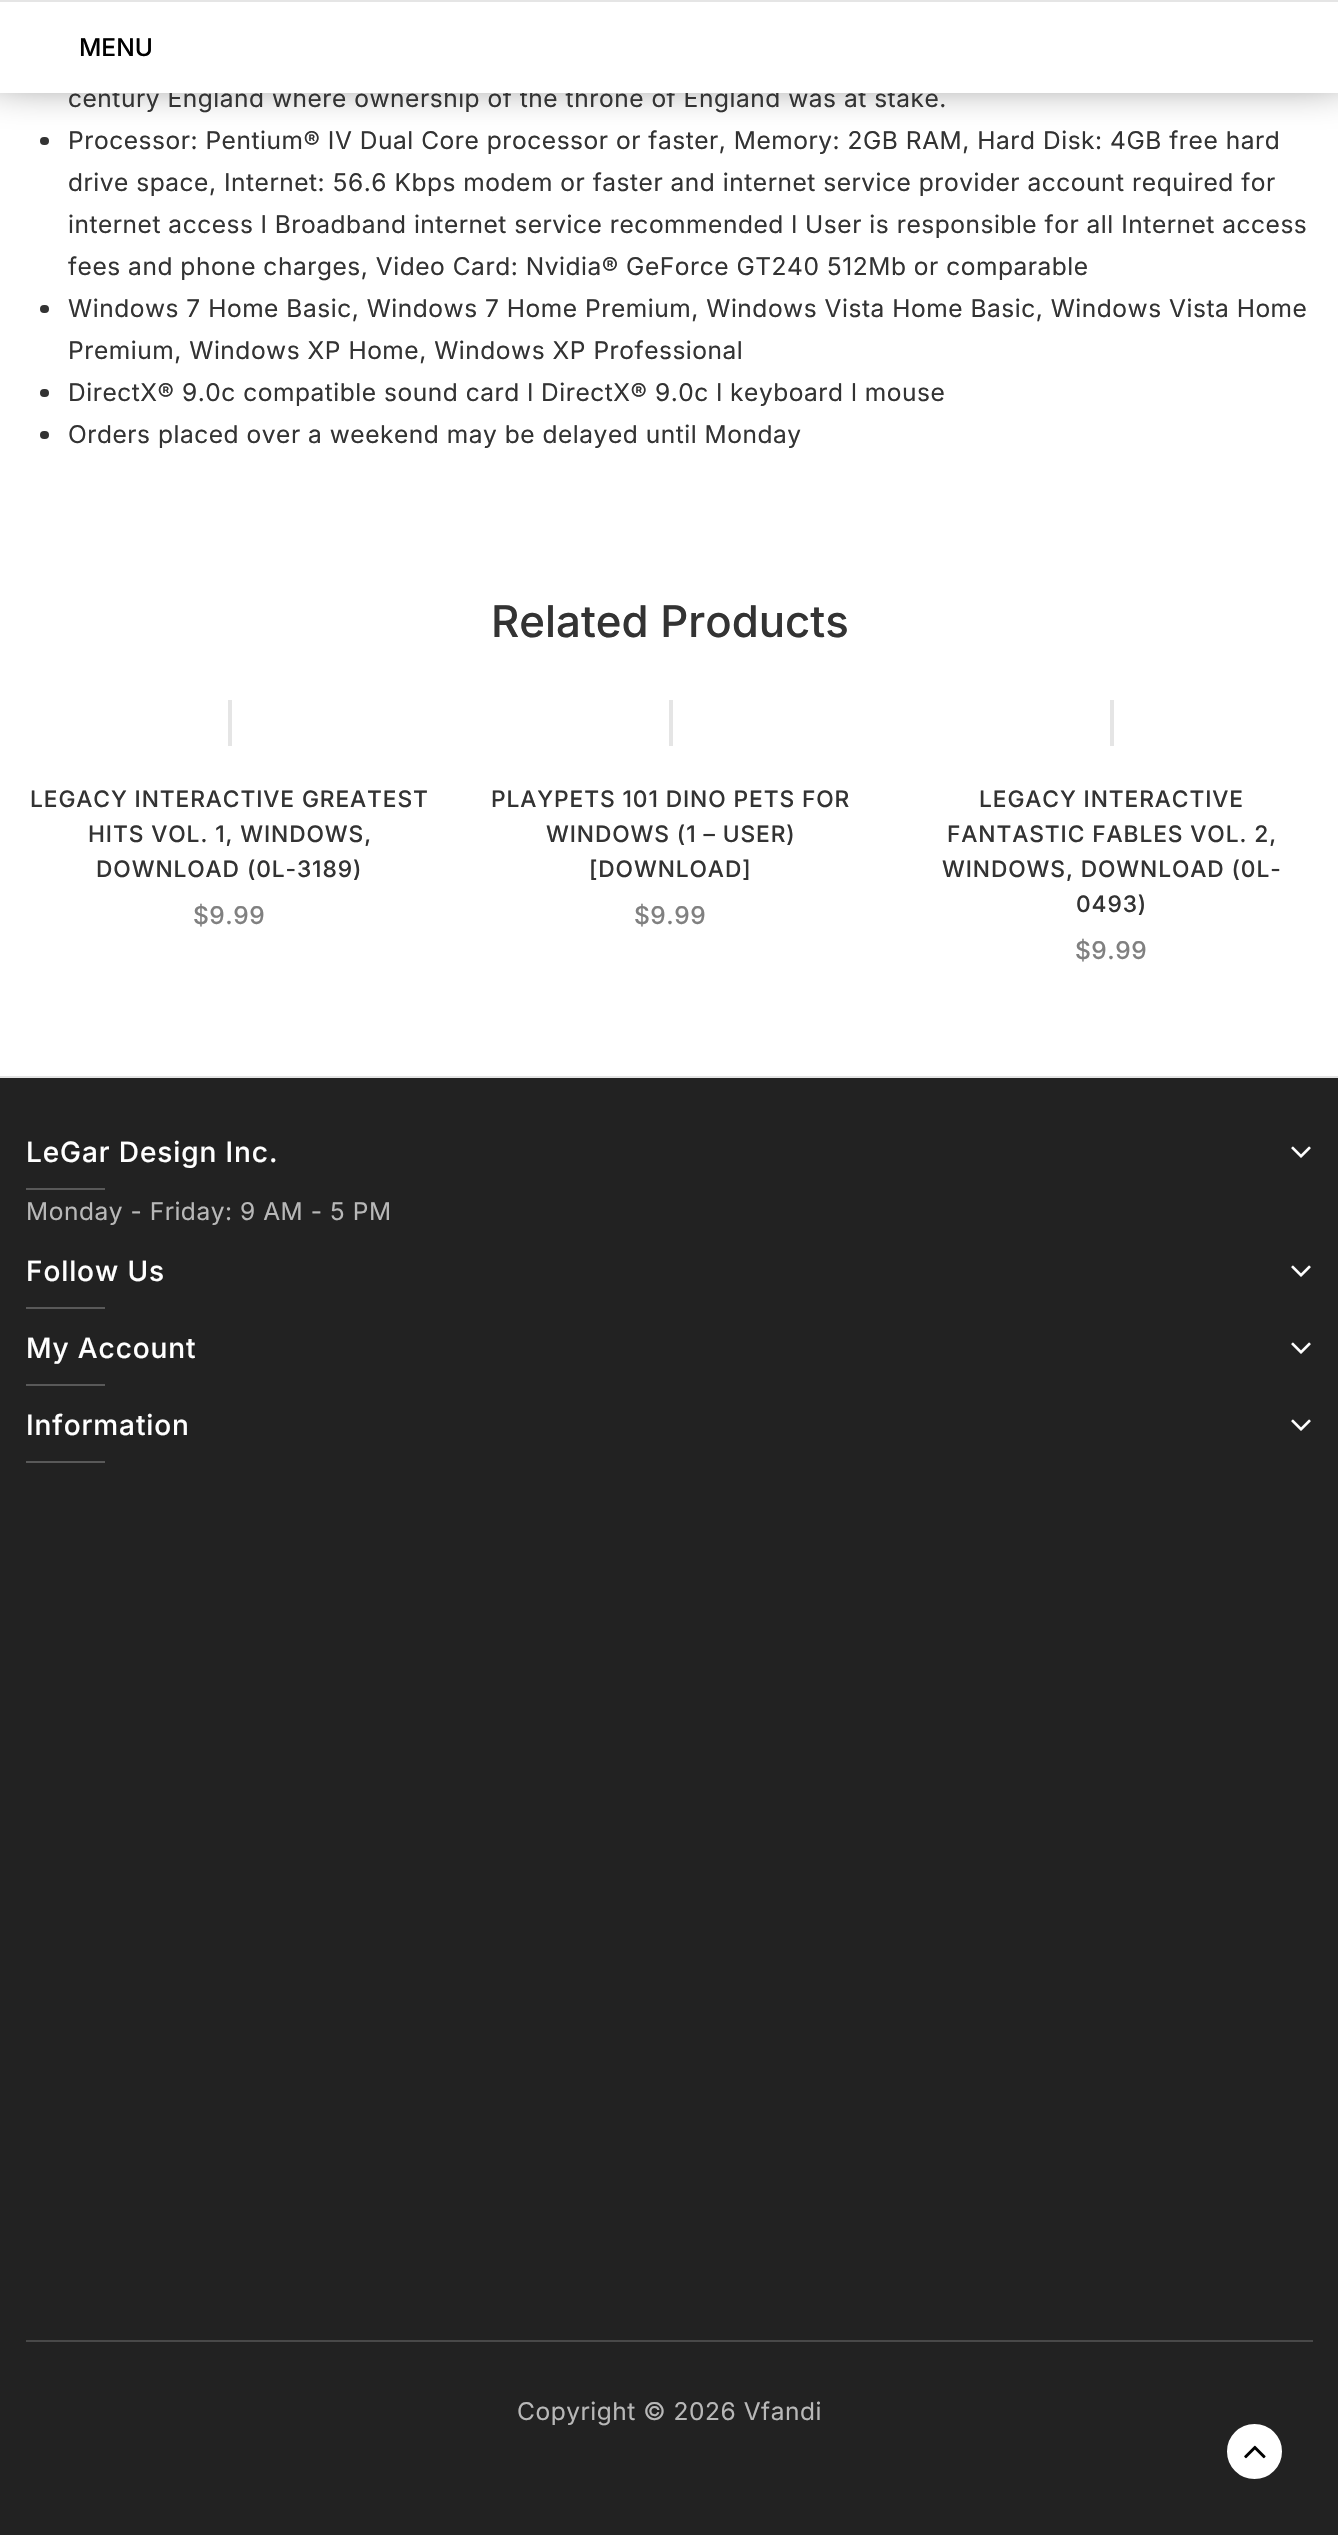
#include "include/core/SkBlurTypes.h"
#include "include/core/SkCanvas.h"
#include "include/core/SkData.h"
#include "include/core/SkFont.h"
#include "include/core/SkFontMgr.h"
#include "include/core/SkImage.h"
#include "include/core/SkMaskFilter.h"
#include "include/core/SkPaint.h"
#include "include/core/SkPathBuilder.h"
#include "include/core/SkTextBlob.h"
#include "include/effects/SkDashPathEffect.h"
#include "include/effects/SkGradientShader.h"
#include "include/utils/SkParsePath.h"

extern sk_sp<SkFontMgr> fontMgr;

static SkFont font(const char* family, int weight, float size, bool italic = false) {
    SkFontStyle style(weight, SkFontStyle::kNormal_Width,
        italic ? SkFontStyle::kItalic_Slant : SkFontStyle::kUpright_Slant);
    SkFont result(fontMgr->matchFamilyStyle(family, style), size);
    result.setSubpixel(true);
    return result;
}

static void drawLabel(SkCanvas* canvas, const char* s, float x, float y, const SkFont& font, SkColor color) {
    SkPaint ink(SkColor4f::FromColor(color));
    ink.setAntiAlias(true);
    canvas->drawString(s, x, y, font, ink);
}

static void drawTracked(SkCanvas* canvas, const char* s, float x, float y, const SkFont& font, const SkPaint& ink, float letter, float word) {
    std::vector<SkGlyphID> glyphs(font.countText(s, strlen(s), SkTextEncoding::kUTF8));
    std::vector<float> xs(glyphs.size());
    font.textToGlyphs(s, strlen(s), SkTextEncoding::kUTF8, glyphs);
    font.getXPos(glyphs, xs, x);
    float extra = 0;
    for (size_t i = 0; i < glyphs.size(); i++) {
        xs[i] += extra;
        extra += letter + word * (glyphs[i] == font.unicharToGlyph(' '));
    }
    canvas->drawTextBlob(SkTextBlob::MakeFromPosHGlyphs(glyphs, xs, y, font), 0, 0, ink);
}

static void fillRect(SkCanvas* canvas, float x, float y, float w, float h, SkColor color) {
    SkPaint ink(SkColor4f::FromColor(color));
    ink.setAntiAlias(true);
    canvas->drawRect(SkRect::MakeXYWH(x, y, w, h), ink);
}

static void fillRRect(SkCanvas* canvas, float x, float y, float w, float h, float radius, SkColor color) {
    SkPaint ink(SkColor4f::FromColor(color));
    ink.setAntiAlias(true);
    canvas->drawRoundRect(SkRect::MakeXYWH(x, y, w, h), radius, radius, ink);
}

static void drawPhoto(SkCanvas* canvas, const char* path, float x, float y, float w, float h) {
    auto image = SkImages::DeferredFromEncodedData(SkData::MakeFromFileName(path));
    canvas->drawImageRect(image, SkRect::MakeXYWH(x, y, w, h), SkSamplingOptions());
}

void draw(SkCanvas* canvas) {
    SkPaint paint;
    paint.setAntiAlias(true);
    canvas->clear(0xFFFFFFFF);
    fillRRect(canvas, 40, 137, 9, 8, 4, 0xFF333333);
    paint.setColor(0xFF000000);
    paint.setMaskFilter(SkMaskFilter::MakeBlur(kNormal_SkBlurStyle, 26));
    canvas->drawRect(SkRect::MakeXYWH(-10, -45, 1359, 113), paint);
    paint.setMaskFilter(nullptr);
    SkFont font1 = font("Inter", 400, 24.5f);
    paint.setColor(0xFF333333);
    drawTracked(canvas, "century England where ownership of the throne of England was at stake.", 68, 107, font1, paint, 0.53f, 0);
    fillRect(canvas, 0, 2, 1338, 91, 0xFFFFFFFF);
    fillRect(canvas, 0, 0, 1338, 2, 0xFFE5E5E5);
    SkFont font2 = font("Inter", 500, 24.5f);
    drawLabel(canvas, "MENU", 79, 56, font2, 0xFF000000);
    drawTracked(canvas, "Processor: Pentium® IV Dual Core processor or faster, Memory: 2GB RAM, Hard Disk: 4GB free hard", 68, 149, font1, paint, 0.53f, 0);
    drawTracked(canvas, "drive space, Internet: 56.6 Kbps modem or faster and internet service provider account required for", 68, 191, font1, paint, 0.53f, 0);
    drawTracked(canvas, "internet access l Broadband internet service recommended l User is responsible for all Internet access", 68, 233, font1, paint, 0.53f, 0);
    drawTracked(canvas, "fees and phone charges, Video Card: Nvidia® GeForce GT240 512Mb or comparable", 68, 275, font1, paint, 0.53f, 0);
    fillRRect(canvas, 40, 305, 9, 8, 4, 0xFF333333);
    drawTracked(canvas, "Windows 7 Home Basic, Windows 7 Home Premium, Windows Vista Home Basic, Windows Vista Home", 68, 317, font1, paint, 0.53f, 0);
    drawTracked(canvas, "Premium, Windows XP Home, Windows XP Professional", 68, 359, font1, paint, 0.53f, 0);
    fillRRect(canvas, 40, 389, 9, 8, 4, 0xFF333333);
    drawTracked(canvas, "DirectX® 9.0c compatible sound card l DirectX® 9.0c l keyboard l mouse", 68, 401, font1, paint, 0.53f, 0);
    fillRRect(canvas, 40, 431, 9, 8, 4, 0xFF333333);
    drawTracked(canvas, "Orders placed over a weekend may be delayed until Monday", 68, 443, font1, paint, 0.53f, 0);
    SkFont font3 = font("Inter", 500, 43.75f);
    drawLabel(canvas, "Related Products", 491, 637, font3, 0xFF333333);
    fillRect(canvas, 228, 700, 4, 46, 0xFFE5E5E5);
    SkFont font4 = font("Inter", 500, 22.75f);
    drawTracked(canvas, "LEGACY INTERACTIVE GREATEST", 30, 807, font4, paint, 0.9f, 0);
    drawTracked(canvas, "HITS VOL. 1, WINDOWS,", 88, 842, font4, paint, 0.9f, 0);
    drawTracked(canvas, "DOWNLOAD (0L-3189)", 96, 877, font4, paint, 0.9f, 0);
    paint.setColor(0xFF808080);
    drawTracked(canvas, "$9.99", 193, 924, font2, paint, 0.53f, 0);
    fillRect(canvas, 669, 700, 4, 46, 0xFFE5E5E5);
    paint.setColor(0xFF333333);
    drawTracked(canvas, "PLAYPETS 101 DINO PETS FOR", 491, 807, font4, paint, 0.9f, 0);
    drawTracked(canvas, "WINDOWS (1 – USER)", 546, 842, font4, paint, 0.9f, 0);
    drawTracked(canvas, "[DOWNLOAD]", 589, 877, font4, paint, 0.9f, 0);
    paint.setColor(0xFF808080);
    drawTracked(canvas, "$9.99", 634, 924, font2, paint, 0.53f, 0);
    fillRect(canvas, 1110, 700, 4, 46, 0xFFE5E5E5);
    paint.setColor(0xFF333333);
    drawTracked(canvas, "LEGACY INTERACTIVE", 979, 807, font4, paint, 0.9f, 0);
    drawTracked(canvas, "FANTASTIC FABLES VOL. 2,", 947, 842, font4, paint, 0.9f, 0);
    drawTracked(canvas, "WINDOWS, DOWNLOAD (0L-", 942, 877, font4, paint, 0.9f, 0);
    drawTracked(canvas, "0493)", 1076, 912, font4, paint, 0.9f, 0);
    paint.setColor(0xFF808080);
    drawTracked(canvas, "$9.99", 1075, 959, font2, paint, 0.53f, 0);
    fillRect(canvas, 0, 1078, 1338, 1457, 0xFF222222);
    fillRect(canvas, 0, 1076, 1338, 2, 0xFFE3E3E3);
    fillRect(canvas, 26, 2340, 1287, 2, 0xFF494949);
    SkFont font5 = font("Inter", 500, 28);
    paint.setColor(0xFFFFFFFF);
    drawTracked(canvas, "LeGar Design Inc.", 26, 1162, font5, paint, 0.9f, 0);
    fillRect(canvas, 26, 1188, 79, 2, 0xFF595959);
    drawPhoto(canvas, "assets/img1.png", 1291, 1146, 20, 12);
    paint.setColor(0xFFB8B8B8);
    drawTracked(canvas, "Monday - Friday: 9 AM - 5 PM", 26, 1220, font1, paint, 0.53f, 0);
    paint.setColor(0xFFFFFFFF);
    drawTracked(canvas, "Follow Us", 26, 1281, font5, paint, 0.9f, 0);
    fillRect(canvas, 26, 1307, 79, 2, 0xFF595959);
    drawPhoto(canvas, "assets/img1.png", 1291, 1265, 20, 12);
    drawTracked(canvas, "My Account", 26, 1358, font5, paint, 0.9f, 0);
    fillRect(canvas, 26, 1384, 79, 2, 0xFF595959);
    drawPhoto(canvas, "assets/img1.png", 1291, 1342, 20, 12);
    drawTracked(canvas, "Information", 26, 1435, font5, paint, 0.9f, 0);
    fillRect(canvas, 26, 1461, 79, 2, 0xFF595959);
    drawPhoto(canvas, "assets/img1.png", 1291, 1419, 20, 12);
    paint.setColor(0xFFB8B8B8);
    drawTracked(canvas, "Copyright © 2026 Vfandi", 517, 2420, font1, paint, 0.53f, 0);
    paint.setColor(0xFFFFFFFF);
    canvas->drawCircle(1254.5f, 2451.5f, 29.5f, paint);
    paint.setStroke(true);
    paint.setStrokeWidth(4);
    paint.setColor(0xFF222222);
    canvas->drawCircle(1254.5f, 2451.5f, 29.5f, paint);
    drawPhoto(canvas, "assets/img2.png", 1244, 2445, 22, 14);
}
